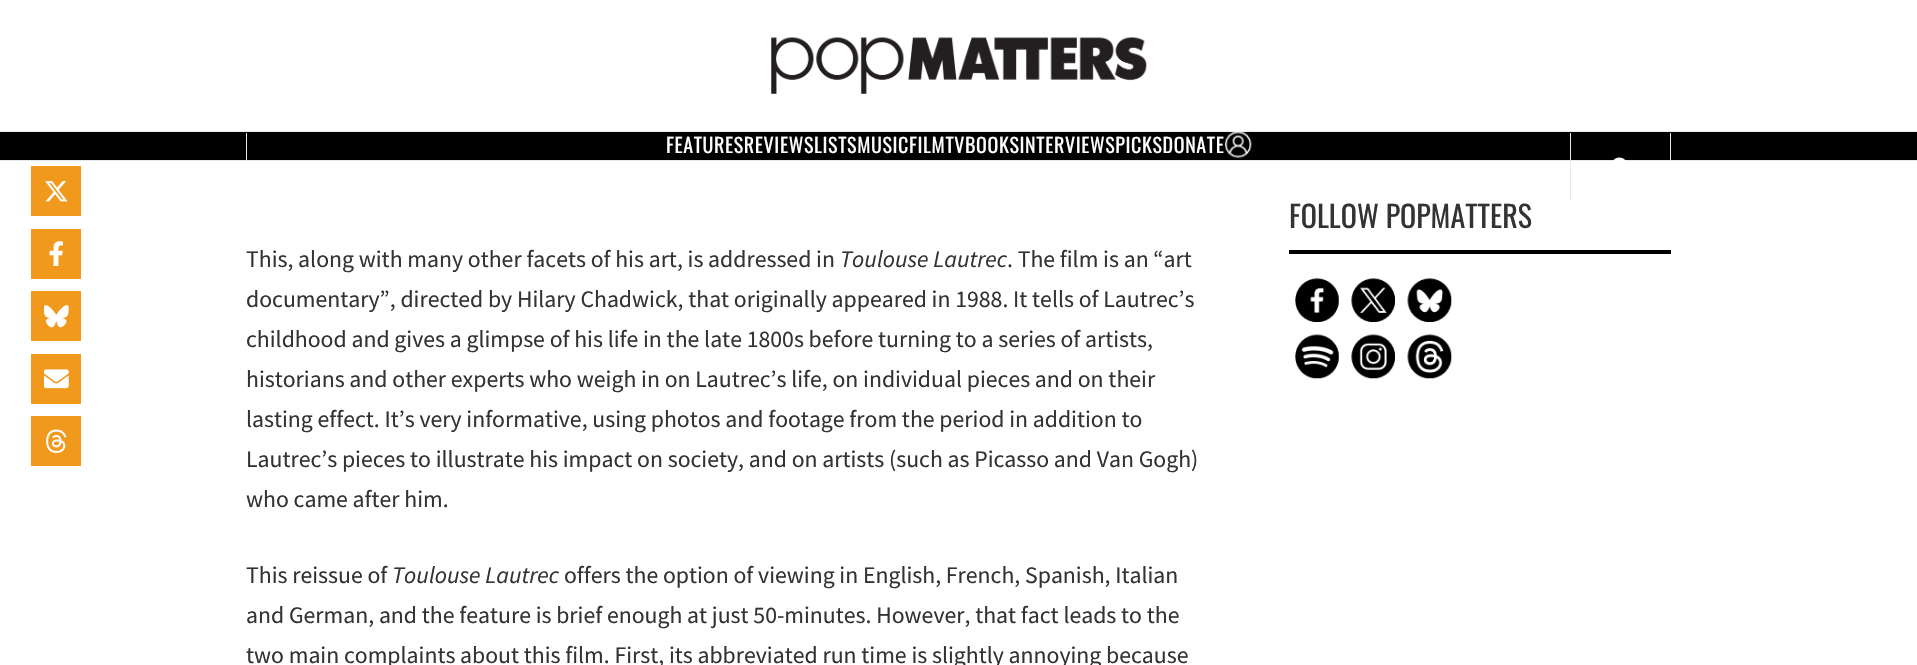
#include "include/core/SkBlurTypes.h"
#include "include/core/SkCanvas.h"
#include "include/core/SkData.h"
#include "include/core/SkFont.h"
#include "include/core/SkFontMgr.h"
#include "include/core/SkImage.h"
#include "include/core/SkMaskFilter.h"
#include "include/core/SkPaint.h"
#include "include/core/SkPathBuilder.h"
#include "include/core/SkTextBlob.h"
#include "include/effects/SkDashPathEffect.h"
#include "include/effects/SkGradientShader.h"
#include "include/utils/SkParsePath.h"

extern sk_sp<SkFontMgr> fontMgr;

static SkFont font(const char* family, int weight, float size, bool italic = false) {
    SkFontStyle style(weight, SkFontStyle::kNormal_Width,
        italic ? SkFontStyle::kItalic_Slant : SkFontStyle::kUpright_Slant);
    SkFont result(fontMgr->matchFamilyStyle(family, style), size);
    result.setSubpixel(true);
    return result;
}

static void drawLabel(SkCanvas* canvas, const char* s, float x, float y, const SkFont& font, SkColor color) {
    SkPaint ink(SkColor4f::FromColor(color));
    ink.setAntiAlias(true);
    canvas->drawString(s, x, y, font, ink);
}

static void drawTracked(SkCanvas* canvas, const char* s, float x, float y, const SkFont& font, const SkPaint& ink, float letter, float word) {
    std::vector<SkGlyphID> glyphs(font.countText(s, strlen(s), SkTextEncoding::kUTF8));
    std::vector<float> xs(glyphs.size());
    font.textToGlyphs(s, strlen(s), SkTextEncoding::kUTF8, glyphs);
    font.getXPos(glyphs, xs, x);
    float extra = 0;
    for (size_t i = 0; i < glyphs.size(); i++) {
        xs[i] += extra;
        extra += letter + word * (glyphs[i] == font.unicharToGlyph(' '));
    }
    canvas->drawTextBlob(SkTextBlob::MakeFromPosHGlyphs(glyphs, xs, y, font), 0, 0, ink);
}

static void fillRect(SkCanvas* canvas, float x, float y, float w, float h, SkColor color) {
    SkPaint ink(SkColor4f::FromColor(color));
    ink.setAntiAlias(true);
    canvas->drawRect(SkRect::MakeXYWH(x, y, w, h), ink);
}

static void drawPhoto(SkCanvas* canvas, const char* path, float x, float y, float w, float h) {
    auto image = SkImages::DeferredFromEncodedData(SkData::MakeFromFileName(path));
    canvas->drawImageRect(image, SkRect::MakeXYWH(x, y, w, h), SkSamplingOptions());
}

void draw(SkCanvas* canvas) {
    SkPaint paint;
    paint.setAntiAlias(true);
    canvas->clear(0xFFFFFFFF);
    fillRect(canvas, 31, 166, 50, 50, 0xFFF0991D);
    drawPhoto(canvas, "assets/img1.png", 45, 181, 23, 21);
    fillRect(canvas, 31, 229, 50, 50, 0xFFF0991D);
    drawPhoto(canvas, "assets/img2.png", 49, 241, 14, 25);
    fillRect(canvas, 31, 291, 50, 50, 0xFFF0991D);
    drawPhoto(canvas, "assets/img3.png", 44, 305, 25, 23);
    fillRect(canvas, 31, 354, 50, 50, 0xFFF0991D);
    drawPhoto(canvas, "assets/img4.png", 44, 369, 25, 20);
    fillRect(canvas, 31, 416, 50, 50, 0xFFF0991D);
    drawPhoto(canvas, "assets/img5.png", 46, 429, 21, 24);
    drawPhoto(canvas, "assets/img6.png", 771, 37, 376, 57);
    fillRect(canvas, 0, 132, 1917, 28, 0xFF000000);
    fillRect(canvas, 0, 131, 1917, 1, 0xFFE8E8E8);
    fillRect(canvas, 0, 160, 1917, 1, 0xFFE8E8E8);
    fillRect(canvas, 1670, 133, 1, 27, 0xFFE8E8E8);
    fillRect(canvas, 246, 133, 1, 27, 0xFFE8E8E8);
    SkFont font1 = font("Oswald", 400, 20);
    paint.setColor(0xFFFFFFFF);
    drawTracked(canvas, "FEATURESREVIEWSLISTSMUSICFILMTVBOOKSINTERVIEWSPICKSDONATE", 666, 153, font1, paint, 0.62f, 0);
    drawPhoto(canvas, "assets/img7.png", 1225, 131, 27, 27);
    fillRect(canvas, 1570, 133, 1, 68, 0xFFE8E8E8);
    drawPhoto(canvas, "assets/img8.png", 1613, 157, 13, 4);
    fillRect(canvas, 1289, 250, 382, 4, 0xFF000000);
    SkFont font2 = font("Oswald", 400, 30);
    drawLabel(canvas, "FOLLOW POPMATTERS", 1289, 228, font2, 0xFF333333);
    drawPhoto(canvas, "assets/img9.png", 1295, 278, 44, 44);
    drawPhoto(canvas, "assets/img10.png", 1351, 278, 44, 44);
    drawPhoto(canvas, "assets/img11.png", 1407, 278, 45, 44);
    drawPhoto(canvas, "assets/img12.png", 1295, 334, 44, 45);
    drawPhoto(canvas, "assets/img13.png", 1351, 334, 44, 45);
    drawPhoto(canvas, "assets/img14.png", 1407, 334, 45, 45);
    SkFont font3 = font("Source Sans Pro", 400, 23.75f);
    drawLabel(canvas, "This, along with many other facets of his art, is addressed in", 246, 267, font3, 0xFF333333);
    SkFont font4 = font("Source Sans Pro", 400, 23.75f, true);
    drawLabel(canvas, "Toulouse Lautrec", 840, 267, font4, 0xFF333333);
    drawLabel(canvas, ". The film is an “art", 1007, 267, font3, 0xFF333333);
    drawLabel(canvas, "documentary”, directed by Hilary Chadwick, that originally appeared in 1988. It tells of Lautrec’s", 246, 307, font3, 0xFF333333);
    drawLabel(canvas, "childhood and gives a glimpse of his life in the late 1800s before turning to a series of artists,", 246, 347, font3, 0xFF333333);
    drawLabel(canvas, "historians and other experts who weigh in on Lautrec’s life, on individual pieces and on their", 246, 387, font3, 0xFF333333);
    drawLabel(canvas, "lasting effect. It’s very informative, using photos and footage from the period in addition to", 246, 427, font3, 0xFF333333);
    drawLabel(canvas, "Lautrec’s pieces to illustrate his impact on society, and on artists (such as Picasso and Van Gogh)", 246, 467, font3, 0xFF333333);
    drawLabel(canvas, "who came after him.", 246, 507, font3, 0xFF333333);
    drawLabel(canvas, "This reissue of", 246, 583, font3, 0xFF333333);
    drawLabel(canvas, "Toulouse Lautrec", 392, 583, font4, 0xFF333333);
    drawLabel(canvas, "offers the option of viewing in English, French, Spanish, Italian", 564, 583, font3, 0xFF333333);
    drawLabel(canvas, "and German, and the feature is brief enough at just 50-minutes. However, that fact leads to the", 246, 623, font3, 0xFF333333);
    drawLabel(canvas, "two main complaints about this film. First, its abbreviated run time is slightly annoying because", 246, 663, font3, 0xFF333333);
}
